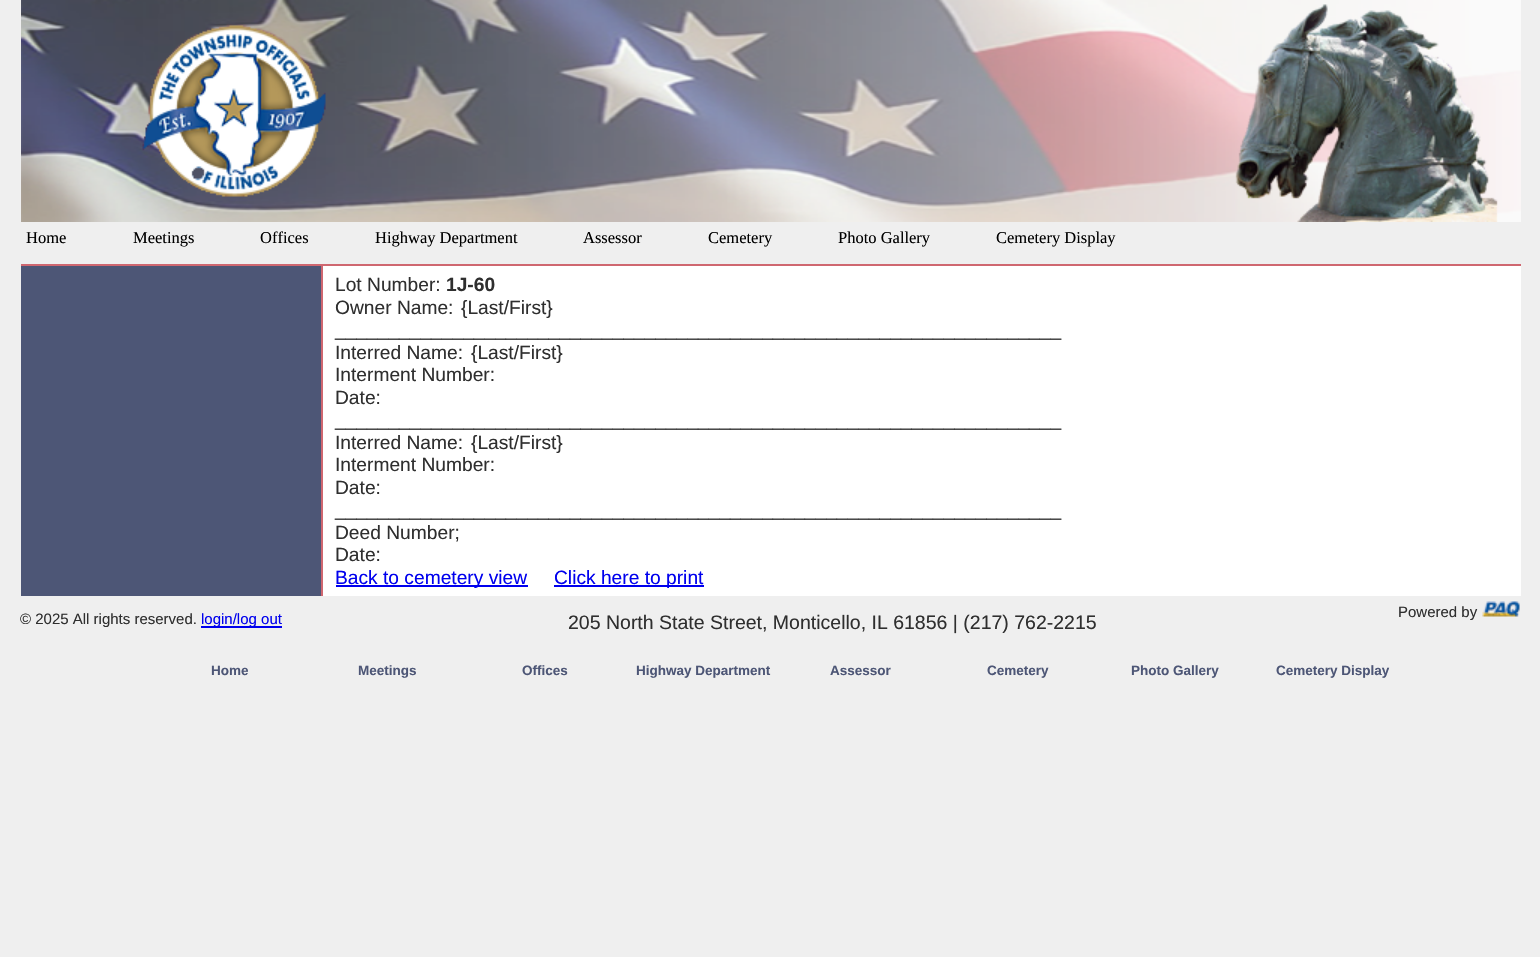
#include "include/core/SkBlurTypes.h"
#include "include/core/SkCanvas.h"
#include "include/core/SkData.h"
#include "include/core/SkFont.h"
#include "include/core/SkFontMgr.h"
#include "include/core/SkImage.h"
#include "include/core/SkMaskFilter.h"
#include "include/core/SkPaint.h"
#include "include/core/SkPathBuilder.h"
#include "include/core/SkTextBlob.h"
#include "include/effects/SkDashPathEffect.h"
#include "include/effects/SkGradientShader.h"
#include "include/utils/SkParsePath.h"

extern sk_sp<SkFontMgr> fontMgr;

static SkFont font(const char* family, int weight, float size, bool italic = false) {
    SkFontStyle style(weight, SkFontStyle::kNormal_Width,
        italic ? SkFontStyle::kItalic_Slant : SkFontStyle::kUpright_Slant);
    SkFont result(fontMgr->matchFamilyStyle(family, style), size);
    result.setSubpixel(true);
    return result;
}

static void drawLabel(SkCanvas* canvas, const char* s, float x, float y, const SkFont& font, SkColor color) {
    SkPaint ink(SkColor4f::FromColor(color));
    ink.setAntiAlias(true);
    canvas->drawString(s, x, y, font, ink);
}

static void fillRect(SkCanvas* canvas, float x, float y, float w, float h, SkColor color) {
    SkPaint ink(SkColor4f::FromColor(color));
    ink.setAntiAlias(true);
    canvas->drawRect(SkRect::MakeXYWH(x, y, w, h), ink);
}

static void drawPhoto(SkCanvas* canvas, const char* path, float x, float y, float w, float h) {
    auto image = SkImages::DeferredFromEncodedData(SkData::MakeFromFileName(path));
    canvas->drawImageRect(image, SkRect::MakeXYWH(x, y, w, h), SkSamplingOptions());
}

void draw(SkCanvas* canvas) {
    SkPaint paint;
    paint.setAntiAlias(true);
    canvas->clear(0xFFEFEFEF);
    drawPhoto(canvas, "assets/img1.png", 21, 0, 1500, 222);
    drawPhoto(canvas, "assets/img2.png", 142, 24, 184, 173);
    fillRect(canvas, 21, 264, 1500, 2, 0xFFCF6770);
    SkFont font1 = font("Liberation Serif", 400, 16.5f);
    drawLabel(canvas, "Home", 26, 243, font1, 0xFF000000);
    drawLabel(canvas, "Meetings", 133, 243, font1, 0xFF000000);
    drawLabel(canvas, "Offices", 260, 243, font1, 0xFF000000);
    drawLabel(canvas, "Highway Department", 375, 243, font1, 0xFF000000);
    drawLabel(canvas, "Assessor", 583, 243, font1, 0xFF000000);
    drawLabel(canvas, "Cemetery", 708, 243, font1, 0xFF000000);
    drawLabel(canvas, "Photo Gallery", 838, 243, font1, 0xFF000000);
    drawLabel(canvas, "Cemetery Display", 996, 243, font1, 0xFF000000);
    fillRect(canvas, 21, 266, 300, 330, 0xFF4D5676);
    fillRect(canvas, 321, 266, 2, 330, 0xFFCF6770);
    fillRect(canvas, 323, 266, 1198, 330, 0xFFFFFFFF);
    SkFont font2 = font("Liberation Sans", 400, 19.2f);
    drawLabel(canvas, "Lot Number:", 335, 291, font2, 0xFF2F2F2F);
    SkFont font3 = font("Liberation Sans", 700, 19.2f);
    drawLabel(canvas, "1J-60", 446, 291, font3, 0xFF2F2F2F);
    drawLabel(canvas, "Owner Name:", 335, 314, font2, 0xFF2F2F2F);
    drawLabel(canvas, "{Last/First}", 461, 314, font2, 0xFF2F2F2F);
    drawLabel(canvas, "____________________________________________________________________", 335, 336, font2, 0xFF2F2F2F);
    drawLabel(canvas, "Interred Name:", 335, 359, font2, 0xFF2F2F2F);
    drawLabel(canvas, "{Last/First}", 471, 359, font2, 0xFF2F2F2F);
    drawLabel(canvas, "Interment Number:", 335, 381, font2, 0xFF2F2F2F);
    drawLabel(canvas, "Date:", 335, 404, font2, 0xFF2F2F2F);
    drawLabel(canvas, "____________________________________________________________________", 335, 426, font2, 0xFF2F2F2F);
    drawLabel(canvas, "Interred Name:", 335, 449, font2, 0xFF2F2F2F);
    drawLabel(canvas, "{Last/First}", 471, 449, font2, 0xFF2F2F2F);
    drawLabel(canvas, "Interment Number:", 335, 471, font2, 0xFF2F2F2F);
    drawLabel(canvas, "Date:", 335, 494, font2, 0xFF2F2F2F);
    drawLabel(canvas, "____________________________________________________________________", 335, 516, font2, 0xFF2F2F2F);
    drawLabel(canvas, "Deed Number;", 335, 539, font2, 0xFF2F2F2F);
    drawLabel(canvas, "Date:", 335, 561, font2, 0xFF2F2F2F);
    fillRect(canvas, 336, 585, 192, 2, 0xFF0000EE);
    drawLabel(canvas, "Back to cemetery view", 335, 584, font2, 0xFF0000EE);
    fillRect(canvas, 554, 585, 150, 2, 0xFF0000EE);
    drawLabel(canvas, "Click here to print", 554, 584, font2, 0xFF0000EE);
    SkFont font4 = font("Liberation Sans", 400, 15);
    drawLabel(canvas, "© 2025 All rights reserved.", 20, 624, font4, 0xFF2F2F2F);
    fillRect(canvas, 201, 626, 81, 2, 0xFF0000EE);
    drawLabel(canvas, "login/log out", 201, 624, font4, 0xFF0000EE);
    drawLabel(canvas, "Powered by", 1398, 617, font4, 0xFF2F2F2F);
    drawPhoto(canvas, "assets/img3.png", 1482, 601, 38, 16);
    SkFont font5 = font("Liberation Sans", 400, 19.5f);
    drawLabel(canvas, "205 North State Street, Monticello, IL 61856 | (217) 762-2215", 568, 629, font5, 0xFF2F2F2F);
    SkFont font6 = font("Liberation Sans", 700, 13.5f);
    drawLabel(canvas, "Home", 211, 675, font6, 0xFF4D5676);
    drawLabel(canvas, "Meetings", 358, 675, font6, 0xFF4D5676);
    drawLabel(canvas, "Offices", 522, 675, font6, 0xFF4D5676);
    drawLabel(canvas, "Highway Department", 636, 675, font6, 0xFF4D5676);
    drawLabel(canvas, "Assessor", 830, 675, font6, 0xFF4D5676);
    drawLabel(canvas, "Cemetery", 987, 675, font6, 0xFF4D5676);
    drawLabel(canvas, "Photo Gallery", 1131, 675, font6, 0xFF4D5676);
    drawLabel(canvas, "Cemetery Display", 1276, 675, font6, 0xFF4D5676);
}
